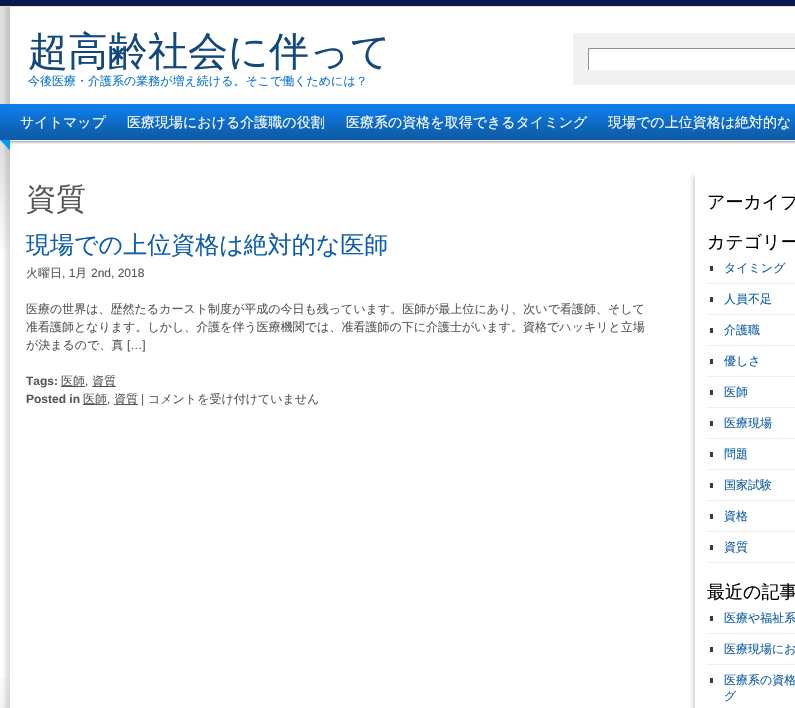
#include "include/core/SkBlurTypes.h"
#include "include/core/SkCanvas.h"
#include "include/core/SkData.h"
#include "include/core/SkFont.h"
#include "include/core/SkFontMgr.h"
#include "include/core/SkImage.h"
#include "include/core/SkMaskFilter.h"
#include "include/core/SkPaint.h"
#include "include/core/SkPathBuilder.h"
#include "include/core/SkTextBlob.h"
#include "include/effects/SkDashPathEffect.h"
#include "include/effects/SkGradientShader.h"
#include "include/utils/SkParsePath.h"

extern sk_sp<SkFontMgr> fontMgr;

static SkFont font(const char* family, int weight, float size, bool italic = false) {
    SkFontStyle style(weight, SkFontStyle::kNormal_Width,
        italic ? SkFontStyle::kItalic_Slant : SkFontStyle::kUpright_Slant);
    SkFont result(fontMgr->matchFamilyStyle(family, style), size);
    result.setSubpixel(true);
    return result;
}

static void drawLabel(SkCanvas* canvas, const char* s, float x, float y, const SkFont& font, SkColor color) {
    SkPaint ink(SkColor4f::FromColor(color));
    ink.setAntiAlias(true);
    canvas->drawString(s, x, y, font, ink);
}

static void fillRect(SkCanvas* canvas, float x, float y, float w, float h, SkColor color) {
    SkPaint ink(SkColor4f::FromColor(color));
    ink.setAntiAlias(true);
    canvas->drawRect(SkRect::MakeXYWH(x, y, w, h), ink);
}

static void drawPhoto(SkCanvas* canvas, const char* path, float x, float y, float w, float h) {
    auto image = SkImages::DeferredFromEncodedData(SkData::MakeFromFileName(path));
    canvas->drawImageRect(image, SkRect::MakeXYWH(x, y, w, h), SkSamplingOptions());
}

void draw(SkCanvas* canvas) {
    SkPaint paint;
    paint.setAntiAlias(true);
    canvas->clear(0xFFFFFFFF);
    drawPhoto(canvas, "assets/img1.png", 0, 0, 795, 249);
    drawPhoto(canvas, "assets/img2.png", 0, 678, 10, 30);
    drawPhoto(canvas, "assets/img3.png", 3, 7, 792, 701);
    SkFont font1 = font("WenQuanYi Zen Hei", 500, 40);
    drawLabel(canvas, "超高齢社会に伴って", 28, 65, font1, 0xFF11487D);
    fillRect(canvas, 573, 33, 222, 52, 0xFFF1F1F1);
    fillRect(canvas, 588, 48, 207, 1, 0xFF909090);
    fillRect(canvas, 589, 49, 206, 21, 0xFFFFFFFF);
    fillRect(canvas, 588, 49, 1, 21, 0xFF909090);
    SkFont font2 = font("WenQuanYi Zen Hei", 500, 12);
    drawLabel(canvas, "今後医療・介護系の業務が増え続ける。そこで働くためには？", 28, 85, font2, 0xFF0F74D9);
    drawPhoto(canvas, "assets/img4.png", 0, 104, 10, 46);
    drawPhoto(canvas, "assets/img5.png", 10, 104, 785, 40);
    SkFont font3 = font("WenQuanYi Zen Hei", 500, 14);
    drawLabel(canvas, "サイトマップ", 20, 127, font3, 0xFFFFFFFF);
    drawLabel(canvas, "医療現場における介護職の役割", 127, 127, font3, 0xFFFFFFFF);
    drawLabel(canvas, "医療系の資格を取得できるタイミング", 346, 127, font3, 0xFFFFFFFF);
    drawLabel(canvas, "現場での上位資格は絶対的な", 608, 127, font3, 0xFFFFFFFF);
    SkFont font4 = font("WenQuanYi Zen Hei", 500, 30);
    drawLabel(canvas, "資質", 26, 209, font4, 0xFF575757);
    SkFont font5 = font("WenQuanYi Zen Hei", 500, 24);
    drawLabel(canvas, "現場での上位資格は絶対的な医師", 26, 253, font5, 0xFF0E5DAA);
    drawLabel(canvas, "火曜日", 26, 277, font2, 0xFF575757);
    SkFont font6 = font("Liberation Sans", 400, 12);
    drawLabel(canvas, ", 1", 62, 277, font6, 0xFF575757);
    drawLabel(canvas, "月", 75, 277, font2, 0xFF575757);
    drawLabel(canvas, "2nd, 2018", 91, 277, font6, 0xFF575757);
    drawLabel(canvas, "医療の世界は、歴然たるカースト制度が平成の今日も残っています。医師が最上位にあり、次いで看護師、そして", 26, 313, font2, 0xFF575757);
    drawLabel(canvas, "准看護師となります。しかし、介護を伴う医療機関では、准看護師の下に介護士がいます。資格でハッキリと立場", 26, 331, font2, 0xFF575757);
    drawLabel(canvas, "が決まるので、真", 26, 349, font2, 0xFF575757);
    drawLabel(canvas, "[…]", 127, 349, font6, 0xFF575757);
    SkFont font7 = font("Liberation Sans", 700, 12);
    drawLabel(canvas, "Tags:", 26, 385, font7, 0xFF575757);
    fillRect(canvas, 61, 386, 24, 1, 0xFF575757);
    drawLabel(canvas, "医師", 61, 385, font2, 0xFF575757);
    drawLabel(canvas, ",", 85, 385, font6, 0xFF575757);
    fillRect(canvas, 92, 386, 24, 1, 0xFF575757);
    drawLabel(canvas, "資質", 92, 385, font2, 0xFF575757);
    drawLabel(canvas, "Posted in", 26, 403, font7, 0xFF575757);
    fillRect(canvas, 83, 404, 24, 1, 0xFF575757);
    drawLabel(canvas, "医師", 83, 403, font2, 0xFF575757);
    drawLabel(canvas, ",", 107, 403, font6, 0xFF575757);
    fillRect(canvas, 114, 404, 24, 1, 0xFF575757);
    drawLabel(canvas, "資質", 114, 403, font2, 0xFF575757);
    drawLabel(canvas, "|", 141, 403, font6, 0xFF575757);
    drawLabel(canvas, "コメントを受け付けていません", 148, 403, font2, 0xFF575757);
    drawPhoto(canvas, "assets/img6.png", 690, 172, 5, 9);
    drawPhoto(canvas, "assets/img7.png", 690, 181, 5, 527);
    SkFont font8 = font("WenQuanYi Zen Hei", 500, 18);
    drawLabel(canvas, "アーカイブ", 707, 208, font8, 0xFF000000);
    drawLabel(canvas, "カテゴリー", 707, 248, font8, 0xFF000000);
    fillRect(canvas, 710, 266, 3, 5, 0xFF3B3B3B);
    fillRect(canvas, 707, 283, 88, 1, 0xFFEFEFEF);
    drawLabel(canvas, "タイミング", 724, 272, font2, 0xFF0E5DAA);
    fillRect(canvas, 710, 297, 3, 5, 0xFF3B3B3B);
    fillRect(canvas, 707, 314, 88, 1, 0xFFEFEFEF);
    drawLabel(canvas, "人員不足", 724, 303, font2, 0xFF0E5DAA);
    fillRect(canvas, 710, 328, 3, 5, 0xFF3B3B3B);
    fillRect(canvas, 707, 345, 88, 1, 0xFFEFEFEF);
    drawLabel(canvas, "介護職", 724, 334, font2, 0xFF0E5DAA);
    fillRect(canvas, 710, 359, 3, 5, 0xFF3B3B3B);
    fillRect(canvas, 707, 376, 88, 1, 0xFFEFEFEF);
    drawLabel(canvas, "優しさ", 724, 365, font2, 0xFF0E5DAA);
    fillRect(canvas, 710, 390, 3, 5, 0xFF3B3B3B);
    fillRect(canvas, 707, 407, 88, 1, 0xFFEFEFEF);
    drawLabel(canvas, "医師", 724, 396, font2, 0xFF0E5DAA);
    fillRect(canvas, 710, 421, 3, 5, 0xFF3B3B3B);
    fillRect(canvas, 707, 438, 88, 1, 0xFFEFEFEF);
    drawLabel(canvas, "医療現場", 724, 427, font2, 0xFF0E5DAA);
    fillRect(canvas, 710, 452, 3, 5, 0xFF3B3B3B);
    fillRect(canvas, 707, 469, 88, 1, 0xFFEFEFEF);
    drawLabel(canvas, "問題", 724, 458, font2, 0xFF0E5DAA);
    fillRect(canvas, 710, 483, 3, 5, 0xFF3B3B3B);
    fillRect(canvas, 707, 500, 88, 1, 0xFFEFEFEF);
    drawLabel(canvas, "国家試験", 724, 489, font2, 0xFF0E5DAA);
    fillRect(canvas, 710, 514, 3, 5, 0xFF3B3B3B);
    fillRect(canvas, 707, 531, 88, 1, 0xFFEFEFEF);
    drawLabel(canvas, "資格", 724, 520, font2, 0xFF0E5DAA);
    fillRect(canvas, 710, 545, 3, 5, 0xFF3B3B3B);
    fillRect(canvas, 707, 562, 88, 1, 0xFFEFEFEF);
    drawLabel(canvas, "資質", 724, 551, font2, 0xFF0E5DAA);
    drawLabel(canvas, "最近の記事", 707, 598, font8, 0xFF000000);
    fillRect(canvas, 710, 616, 3, 5, 0xFF3B3B3B);
    fillRect(canvas, 707, 633, 88, 1, 0xFFEFEFEF);
    drawLabel(canvas, "医療や福祉系", 724, 622, font2, 0xFF0E5DAA);
    fillRect(canvas, 710, 647, 3, 5, 0xFF3B3B3B);
    fillRect(canvas, 707, 664, 88, 1, 0xFFEFEFEF);
    drawLabel(canvas, "医療現場にお", 724, 653, font2, 0xFF0E5DAA);
    fillRect(canvas, 710, 678, 3, 5, 0xFF3B3B3B);
    drawLabel(canvas, "医療系の資格", 724, 684, font2, 0xFF0E5DAA);
    drawLabel(canvas, "グ", 724, 700, font2, 0xFF0E5DAA);
}
